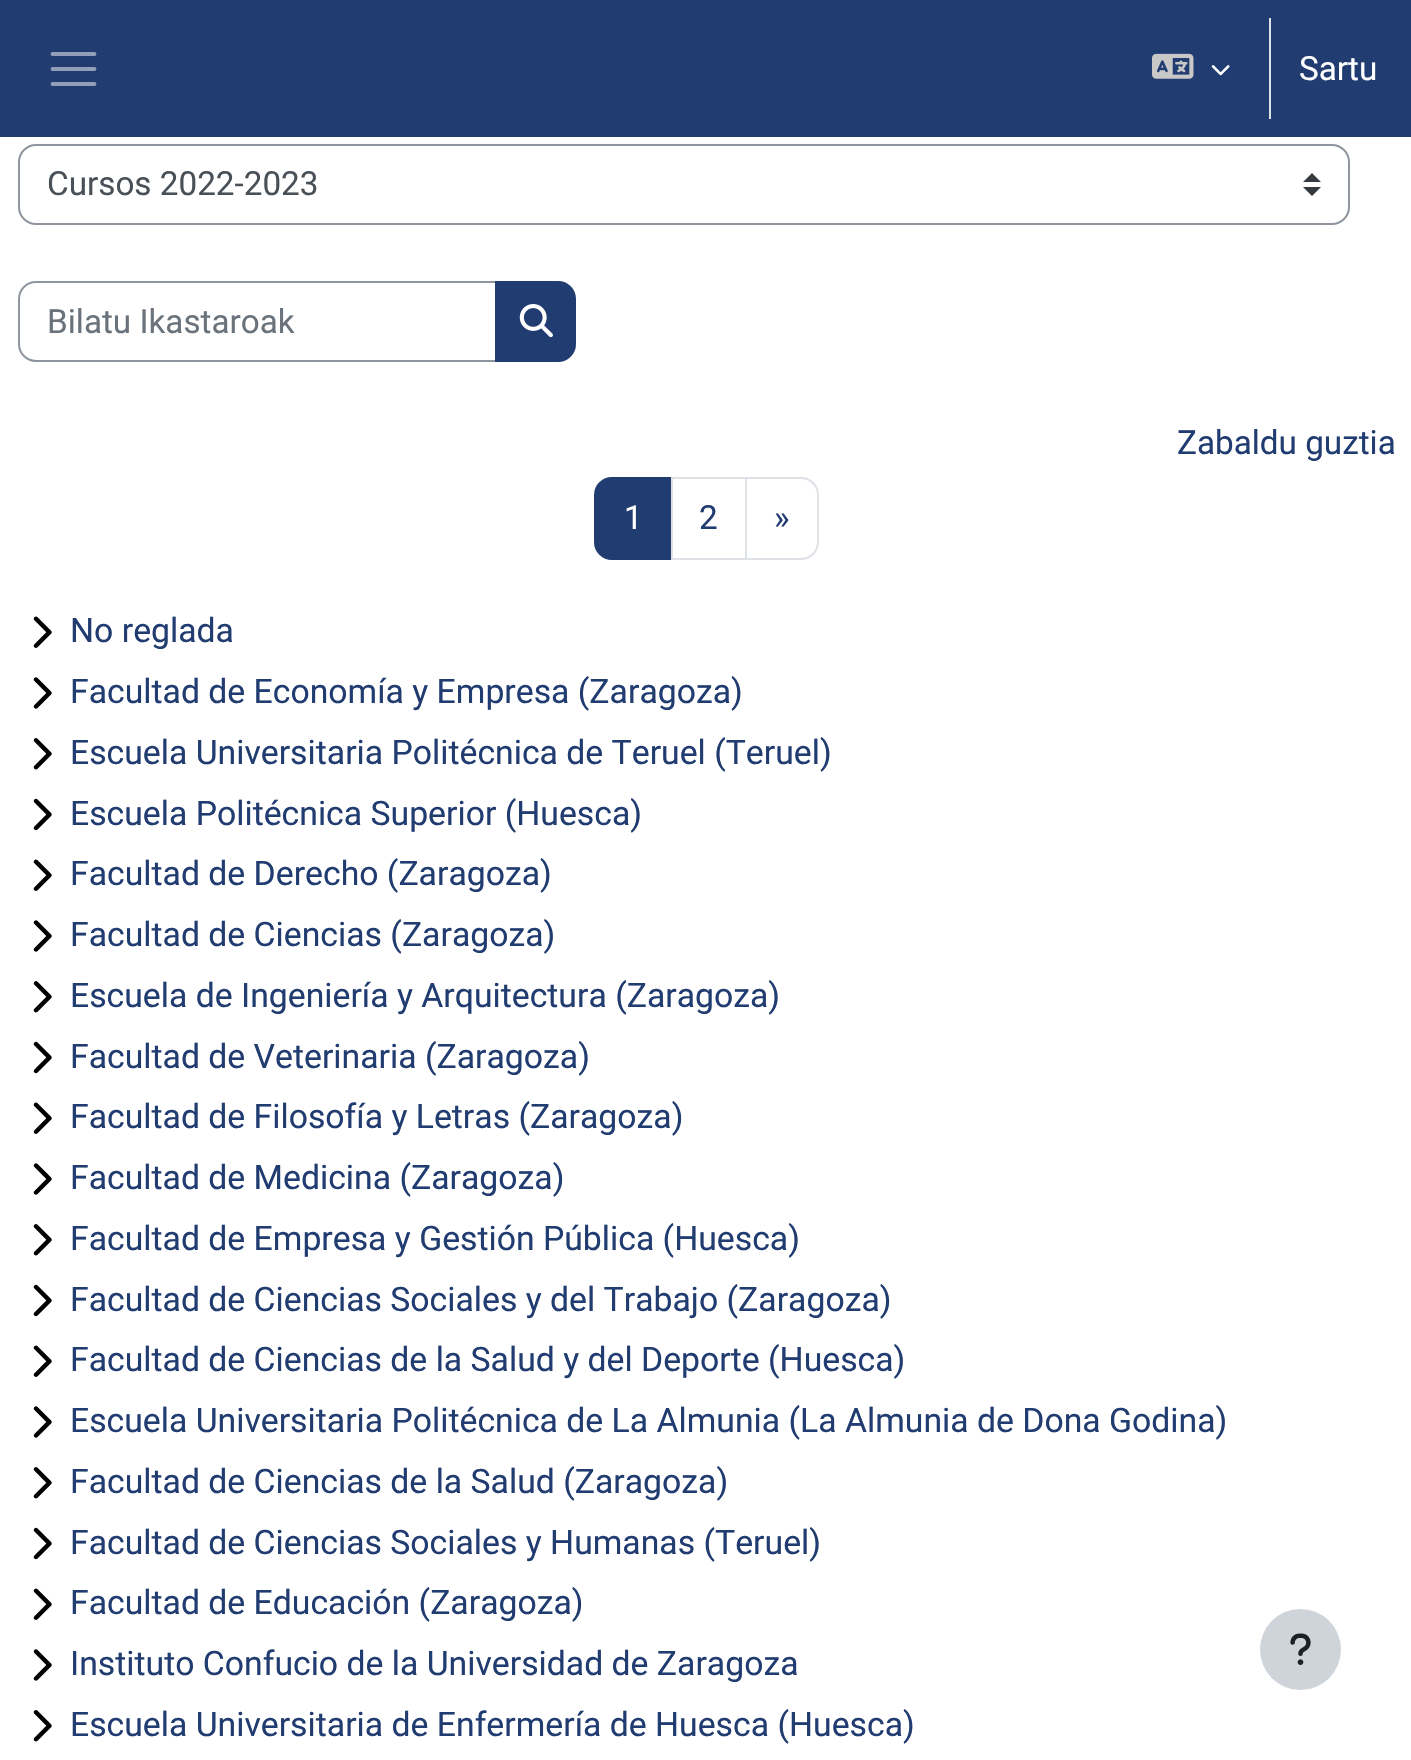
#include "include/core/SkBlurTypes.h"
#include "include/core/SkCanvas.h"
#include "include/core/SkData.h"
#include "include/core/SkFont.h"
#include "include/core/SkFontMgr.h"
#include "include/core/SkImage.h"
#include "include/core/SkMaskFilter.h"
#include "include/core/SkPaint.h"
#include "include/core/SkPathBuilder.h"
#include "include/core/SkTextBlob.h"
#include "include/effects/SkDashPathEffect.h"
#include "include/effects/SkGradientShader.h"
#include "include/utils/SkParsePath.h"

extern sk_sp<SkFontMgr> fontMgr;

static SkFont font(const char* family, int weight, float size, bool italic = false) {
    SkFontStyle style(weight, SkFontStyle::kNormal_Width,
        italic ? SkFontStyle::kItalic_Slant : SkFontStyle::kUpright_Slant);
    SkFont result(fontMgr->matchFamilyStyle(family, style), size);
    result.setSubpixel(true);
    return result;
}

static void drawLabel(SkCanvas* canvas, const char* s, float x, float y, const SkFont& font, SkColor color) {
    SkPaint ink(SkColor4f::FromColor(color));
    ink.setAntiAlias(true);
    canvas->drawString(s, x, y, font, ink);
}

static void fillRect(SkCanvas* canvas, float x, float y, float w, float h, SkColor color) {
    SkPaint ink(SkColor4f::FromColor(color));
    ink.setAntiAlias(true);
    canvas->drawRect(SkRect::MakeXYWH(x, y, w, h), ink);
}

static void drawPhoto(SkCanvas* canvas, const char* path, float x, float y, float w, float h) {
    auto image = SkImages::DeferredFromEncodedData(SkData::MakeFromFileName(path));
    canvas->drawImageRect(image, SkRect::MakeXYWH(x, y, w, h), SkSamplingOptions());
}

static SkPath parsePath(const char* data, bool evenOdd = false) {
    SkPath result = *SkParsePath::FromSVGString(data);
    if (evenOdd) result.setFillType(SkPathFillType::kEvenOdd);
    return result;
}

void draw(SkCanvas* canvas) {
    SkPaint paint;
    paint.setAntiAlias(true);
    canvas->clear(0xFFFFFFFF);
    fillRect(canvas, 0, 0, 1411, 137, 0xFF213C70);
    paint.setStroke(true);
    paint.setStrokeWidth(3.8f);
    paint.setStrokeCap(SkPaint::kRound_Cap);
    paint.setColor(0xFF909EB8);
    canvas->drawPath(parsePath("M52.5 54H94.5M52.5 69H94.5M52.5 84H94.5"), paint);
    drawPhoto(canvas, "assets/img1.png", 1152, 53, 42, 26);
    drawPhoto(canvas, "assets/img2.png", 1211, 65, 19, 11);
    fillRect(canvas, 1269, 18, 2, 101, 0xFFDEE2E6);
    SkFont font1 = font("Roboto", 400, 33.25f);
    drawLabel(canvas, "Sartu", 1299, 80, font1, 0xFFFFFFFF);
    paint.setStroke(false);
    paint.setColor(0xFF343A40);
    canvas->drawPath(parsePath("M1312 173L1303 182H1321ZM1312 196L1303 187H1321Z"), paint);
    paint.setStroke(true);
    paint.setStrokeWidth(2);
    paint.setStrokeCap(SkPaint::kButt_Cap);
    paint.setColor(0xFF8F959E);
    canvas->drawRoundRect(SkRect::MakeXYWH(19, 145, 1330, 79), 17, 17, paint);
    drawLabel(canvas, "Cursos 2022-2023", 47, 195, font1, 0xFF495057);
    canvas->drawPath(parsePath("M36 282H496V361H36C26.5 361 19 353.5 19 344V299C19 289.5 26.5 282 36 282Z"), paint);
    drawLabel(canvas, "Bilatu Ikastaroak", 47, 333, font1, 0xFF6A737B);
    paint.setStroke(false);
    paint.setColor(0xFF213C70);
    canvas->drawPath(parsePath("M496 282H558C567.5 282 575 289.5 575 299V344C575 353.5 567.5 361 558 361H496Z"), paint);
    paint.setStroke(true);
    canvas->drawPath(parsePath("M496 282H558C567.5 282 575 289.5 575 299V344C575 353.5 567.5 361 558 361H496Z"), paint);
    drawPhoto(canvas, "assets/img3.png", 519, 304, 34, 34);
    drawLabel(canvas, "Zabaldu guztia", 1177, 454, font1, 0xFF213C70);
    paint.setStroke(false);
    canvas->drawPath(parsePath("M612 478H672V559H612C602.5 559 595 551.5 595 542V495C595 485.5 602.5 478 612 478Z"), paint);
    paint.setStroke(true);
    canvas->drawPath(parsePath("M612 478H672V559H612C602.5 559 595 551.5 595 542V495C595 485.5 602.5 478 612 478Z"), paint);
    drawLabel(canvas, "1", 624, 529, font1, 0xFFFFFFFF);
    paint.setColor(0xFFDEE2E6);
    canvas->drawRect(SkRect::MakeXYWH(672, 478, 74, 81), paint);
    drawLabel(canvas, "2", 699, 529, font1, 0xFF213C70);
    paint.setStroke(false);
    paint.setColor(0xFFFFFFFF);
    canvas->drawPath(parsePath("M746 478H801C810.5 478 818 485.5 818 495V542C818 551.5 810.5 559 801 559H746Z"), paint);
    paint.setStroke(true);
    paint.setColor(0xFFDEE2E6);
    canvas->drawPath(parsePath("M746 478H801C810.5 478 818 485.5 818 495V542C818 551.5 810.5 559 801 559H746Z"), paint);
    drawLabel(canvas, "»", 774, 529, font1, 0xFF213C70);
    drawPhoto(canvas, "assets/img4.png", 33, 616, 19, 32);
    SkFont font2 = font("Roboto", 400, 33.75f);
    drawLabel(canvas, "No reglada", 70, 642, font2, 0xFF213C70);
    drawPhoto(canvas, "assets/img5.png", 33, 677, 19, 32);
    drawLabel(canvas, "Facultad de Economía y Empresa (Zaragoza)", 70, 703, font2, 0xFF213C70);
    drawPhoto(canvas, "assets/img6.png", 33, 738, 19, 32);
    drawLabel(canvas, "Escuela Universitaria Politécnica de Teruel (Teruel)", 70, 764, font2, 0xFF213C70);
    drawPhoto(canvas, "assets/img7.png", 33, 798, 19, 33);
    drawLabel(canvas, "Escuela Politécnica Superior (Huesca)", 70, 825, font2, 0xFF213C70);
    drawPhoto(canvas, "assets/img4.png", 33, 859, 19, 32);
    drawLabel(canvas, "Facultad de Derecho (Zaragoza)", 70, 885, font2, 0xFF213C70);
    drawPhoto(canvas, "assets/img5.png", 33, 920, 19, 32);
    drawLabel(canvas, "Facultad de Ciencias (Zaragoza)", 70, 946, font2, 0xFF213C70);
    drawPhoto(canvas, "assets/img6.png", 33, 981, 19, 32);
    drawLabel(canvas, "Escuela de Ingeniería y Arquitectura (Zaragoza)", 70, 1007, font2, 0xFF213C70);
    drawPhoto(canvas, "assets/img7.png", 33, 1041, 19, 33);
    drawLabel(canvas, "Facultad de Veterinaria (Zaragoza)", 70, 1068, font2, 0xFF213C70);
    drawPhoto(canvas, "assets/img4.png", 33, 1102, 19, 32);
    drawLabel(canvas, "Facultad de Filosofía y Letras (Zaragoza)", 70, 1128, font2, 0xFF213C70);
    drawPhoto(canvas, "assets/img8.png", 33, 1163, 19, 32);
    drawLabel(canvas, "Facultad de Medicina (Zaragoza)", 70, 1189, font2, 0xFF213C70);
    drawPhoto(canvas, "assets/img6.png", 33, 1224, 19, 32);
    drawLabel(canvas, "Facultad de Empresa y Gestión Pública (Huesca)", 70, 1250, font2, 0xFF213C70);
    drawPhoto(canvas, "assets/img7.png", 33, 1284, 19, 33);
    drawLabel(canvas, "Facultad de Ciencias Sociales y del Trabajo (Zaragoza)", 70, 1311, font2, 0xFF213C70);
    drawPhoto(canvas, "assets/img4.png", 33, 1345, 19, 32);
    drawLabel(canvas, "Facultad de Ciencias de la Salud y del Deporte (Huesca)", 70, 1371, font2, 0xFF213C70);
    drawPhoto(canvas, "assets/img9.png", 33, 1406, 19, 32);
    drawLabel(canvas, "Escuela Universitaria Politécnica de La Almunia (La Almunia de Dona Godina)", 70, 1432, font2, 0xFF213C70);
    drawPhoto(canvas, "assets/img6.png", 33, 1467, 19, 32);
    drawLabel(canvas, "Facultad de Ciencias de la Salud (Zaragoza)", 70, 1493, font2, 0xFF213C70);
    drawPhoto(canvas, "assets/img7.png", 33, 1527, 19, 33);
    drawLabel(canvas, "Facultad de Ciencias Sociales y Humanas (Teruel)", 70, 1554, font2, 0xFF213C70);
    drawPhoto(canvas, "assets/img4.png", 33, 1588, 19, 32);
    drawLabel(canvas, "Facultad de Educación (Zaragoza)", 70, 1614, font2, 0xFF213C70);
    drawPhoto(canvas, "assets/img5.png", 33, 1649, 19, 32);
    drawLabel(canvas, "Instituto Confucio de la Universidad de Zaragoza", 70, 1675, font2, 0xFF213C70);
    drawPhoto(canvas, "assets/img6.png", 33, 1710, 19, 32);
    drawLabel(canvas, "Escuela Universitaria de Enfermería de Huesca (Huesca)", 70, 1736, font2, 0xFF213C70);
    paint.setStroke(false);
    paint.setColor(0xFFCED4DA);
    canvas->drawCircle(1300.5f, 1649.5f, 40.5f, paint);
    drawPhoto(canvas, "assets/img10.png", 1290, 1633, 21, 32);
}
